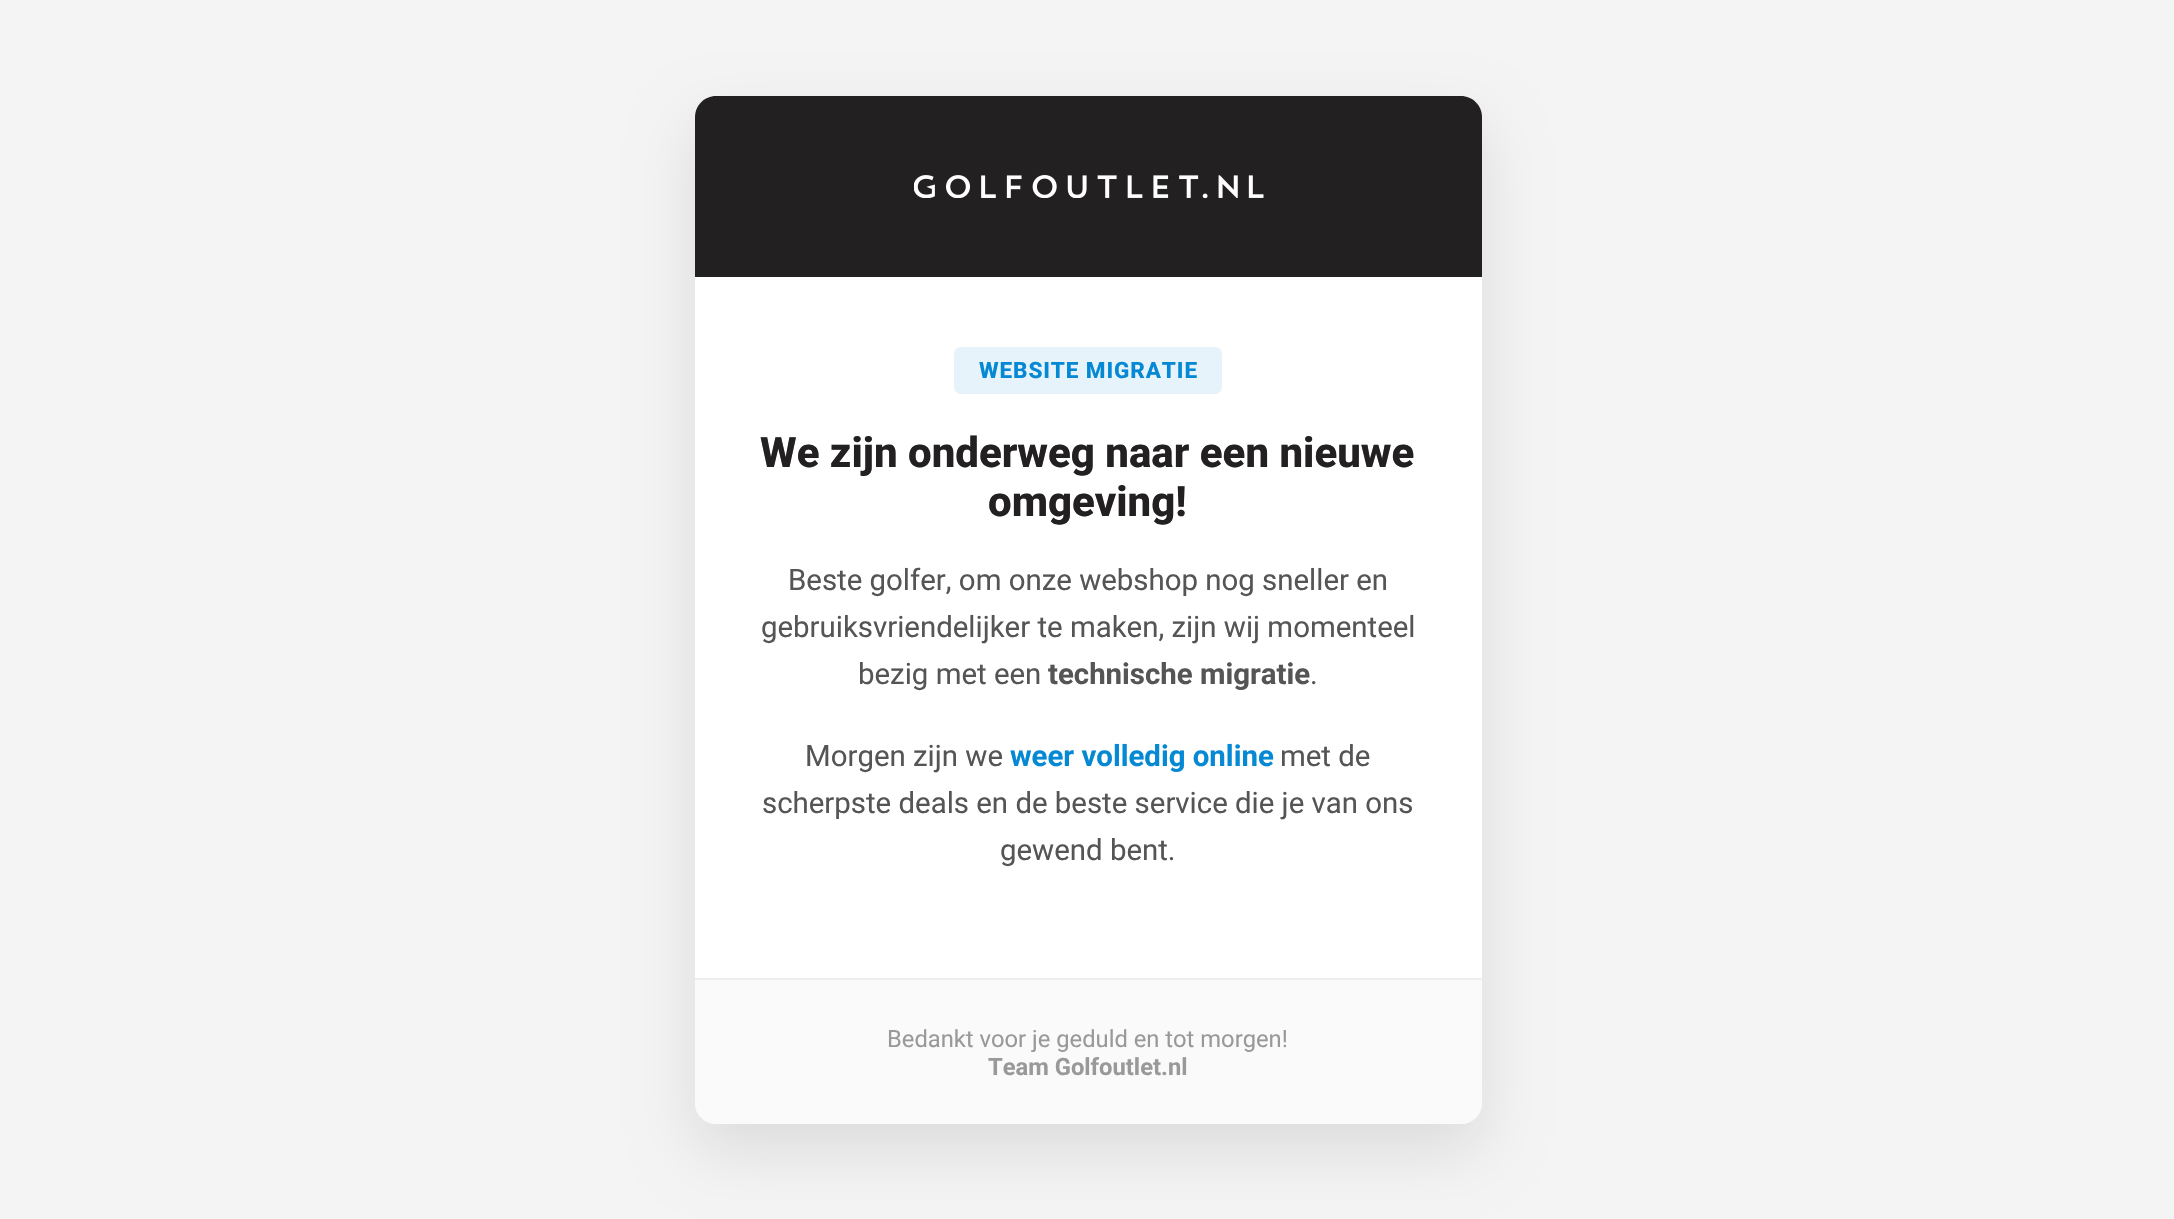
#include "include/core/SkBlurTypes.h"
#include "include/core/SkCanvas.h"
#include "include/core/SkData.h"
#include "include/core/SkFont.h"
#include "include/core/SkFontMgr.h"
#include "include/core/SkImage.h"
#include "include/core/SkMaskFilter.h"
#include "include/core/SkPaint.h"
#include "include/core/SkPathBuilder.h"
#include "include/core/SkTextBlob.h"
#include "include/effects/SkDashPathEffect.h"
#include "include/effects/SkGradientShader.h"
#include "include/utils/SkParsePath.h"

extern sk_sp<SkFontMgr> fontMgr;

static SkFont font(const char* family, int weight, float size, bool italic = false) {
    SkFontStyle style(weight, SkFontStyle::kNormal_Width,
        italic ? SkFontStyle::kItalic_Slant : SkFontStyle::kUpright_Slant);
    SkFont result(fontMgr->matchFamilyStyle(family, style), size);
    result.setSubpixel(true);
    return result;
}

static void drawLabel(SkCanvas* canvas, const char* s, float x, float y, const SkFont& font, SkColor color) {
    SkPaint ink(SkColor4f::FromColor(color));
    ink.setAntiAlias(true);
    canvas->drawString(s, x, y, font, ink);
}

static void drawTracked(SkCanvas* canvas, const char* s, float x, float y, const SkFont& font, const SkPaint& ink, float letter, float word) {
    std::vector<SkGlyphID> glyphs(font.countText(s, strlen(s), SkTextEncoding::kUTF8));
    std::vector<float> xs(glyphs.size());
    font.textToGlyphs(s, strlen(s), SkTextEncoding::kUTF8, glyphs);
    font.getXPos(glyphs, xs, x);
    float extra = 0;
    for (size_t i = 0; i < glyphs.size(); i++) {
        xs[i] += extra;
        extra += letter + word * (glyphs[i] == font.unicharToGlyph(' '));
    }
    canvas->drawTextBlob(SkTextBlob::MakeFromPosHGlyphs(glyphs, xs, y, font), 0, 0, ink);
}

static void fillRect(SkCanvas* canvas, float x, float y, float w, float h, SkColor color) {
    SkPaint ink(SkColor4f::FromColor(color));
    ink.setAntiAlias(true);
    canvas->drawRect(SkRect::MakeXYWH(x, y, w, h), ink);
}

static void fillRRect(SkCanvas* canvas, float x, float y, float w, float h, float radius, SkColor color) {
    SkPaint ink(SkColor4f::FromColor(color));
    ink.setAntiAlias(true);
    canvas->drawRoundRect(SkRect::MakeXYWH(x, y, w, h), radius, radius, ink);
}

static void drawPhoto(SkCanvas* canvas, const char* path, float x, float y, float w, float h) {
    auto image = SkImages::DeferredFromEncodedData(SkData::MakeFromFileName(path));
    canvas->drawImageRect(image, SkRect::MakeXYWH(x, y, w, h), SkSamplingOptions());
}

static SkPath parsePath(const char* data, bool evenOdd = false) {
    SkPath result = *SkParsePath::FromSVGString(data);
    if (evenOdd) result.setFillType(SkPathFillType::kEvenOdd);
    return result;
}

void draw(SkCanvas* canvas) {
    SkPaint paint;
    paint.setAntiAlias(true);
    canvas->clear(0xFFF4F4F4);
    paint.setColor(0x1A000000);
    paint.setMaskFilter(SkMaskFilter::MakeBlur(kNormal_SkBlurStyle, 30.5f));
    canvas->drawRoundRect(SkRect::MakeXYWH(695, 123, 787, 1027), 21, 21, paint);
    paint.setMaskFilter(nullptr);
    fillRRect(canvas, 695, 96, 787, 1028, 21, 0xFFFFFFFF);
    paint.setColor(0xFF222021);
    canvas->drawPath(parsePath("M716 96H1461C1472.5 96 1482 105.5 1482 117V277H695V117C695 105.5 704.5 96 716 96Z"), paint);
    drawPhoto(canvas, "assets/img1.png", 914, 175, 350, 23);
    fillRRect(canvas, 954, 347, 268, 47, 7, 0xFFE6F3FB);
    SkFont font1 = font("Roboto", 800, 22.5f);
    paint.setColor(0xFF0689D4);
    drawTracked(canvas, "WEBSITE MIGRATIE", 979, 378, font1, paint, 0.9f, 0);
    SkFont font2 = font("Roboto", 800, 42);
    drawLabel(canvas, "We zijn onderweg naar een nieuwe", 760, 467, font2, 0xFF222021);
    drawLabel(canvas, "omgeving!", 988, 516, font2, 0xFF222021);
    SkFont font3 = font("Roboto", 400, 29.4f);
    drawLabel(canvas, "Beste golfer, om onze webshop nog sneller en", 788, 590, font3, 0xFF555555);
    drawLabel(canvas, "gebruiksvriendelijker te maken, zijn wij momenteel", 761, 637, font3, 0xFF555555);
    drawLabel(canvas, "bezig met een", 858, 684, font3, 0xFF555555);
    SkFont font4 = font("Roboto", 700, 29.4f);
    drawLabel(canvas, "technische migratie", 1048, 684, font4, 0xFF555555);
    drawLabel(canvas, ".", 1310, 684, font3, 0xFF555555);
    drawLabel(canvas, "Morgen zijn we", 805, 766, font3, 0xFF555555);
    drawLabel(canvas, "weer volledig online", 1010, 766, font4, 0xFF0689D4);
    drawLabel(canvas, "met de", 1280, 766, font3, 0xFF555555);
    drawLabel(canvas, "scherpste deals en de beste service die je van ons", 762, 813, font3, 0xFF555555);
    drawLabel(canvas, "gewend bent.", 1000, 860, font3, 0xFF555555);
    paint.setColor(0xFFFAFAFA);
    canvas->drawPath(parsePath("M695 978H1482V1103C1482 1114.5 1472.5 1124 1461 1124H716C704.5 1124 695 1114.5 695 1103Z"), paint);
    fillRect(canvas, 695, 978, 787, 2, 0xFFEEEEEE);
    SkFont font5 = font("Roboto", 400, 23.75f);
    drawLabel(canvas, "Bedankt voor je geduld en tot morgen!", 887, 1047, font5, 0xFF999999);
    SkFont font6 = font("Roboto", 700, 23.75f);
    drawLabel(canvas, "Team Golfoutlet.nl", 988, 1075, font6, 0xFF999999);
}
